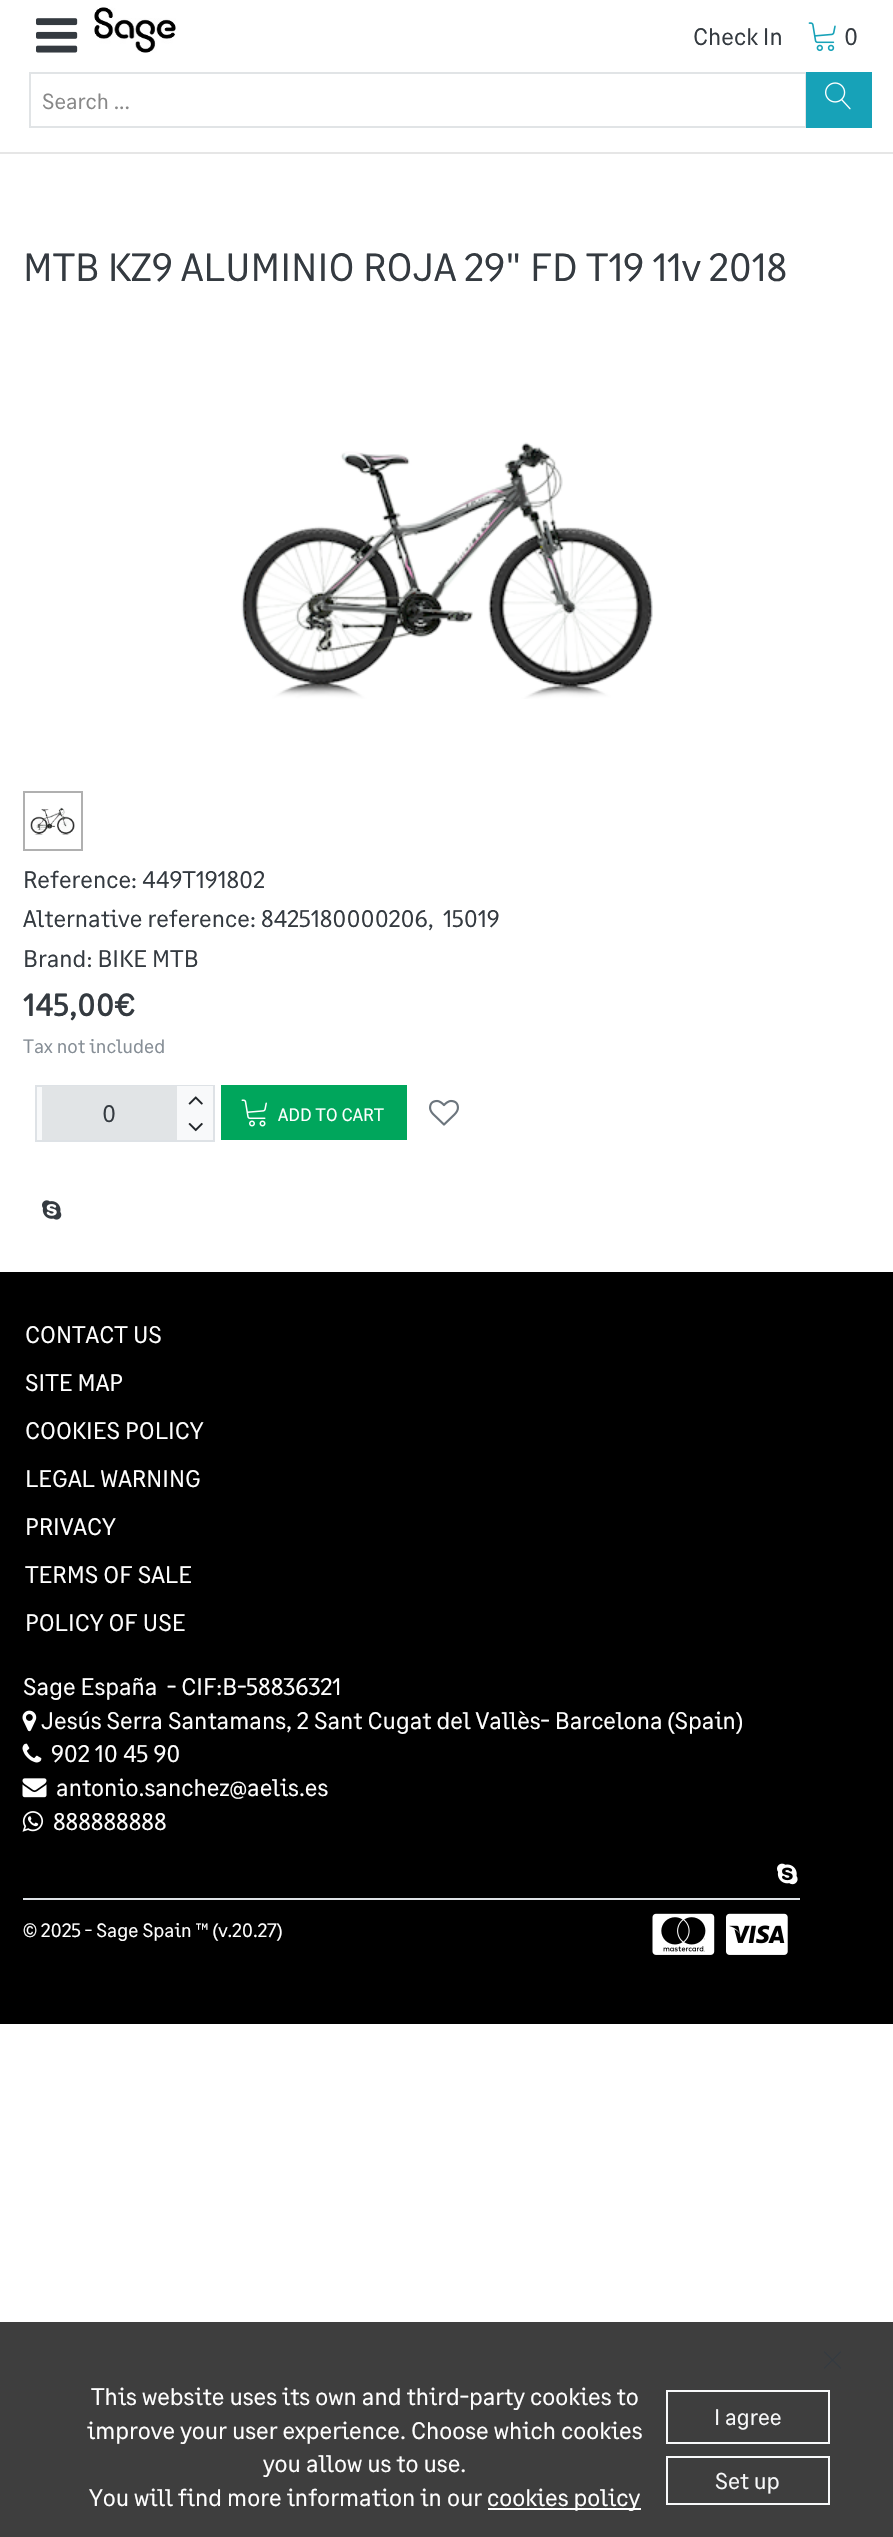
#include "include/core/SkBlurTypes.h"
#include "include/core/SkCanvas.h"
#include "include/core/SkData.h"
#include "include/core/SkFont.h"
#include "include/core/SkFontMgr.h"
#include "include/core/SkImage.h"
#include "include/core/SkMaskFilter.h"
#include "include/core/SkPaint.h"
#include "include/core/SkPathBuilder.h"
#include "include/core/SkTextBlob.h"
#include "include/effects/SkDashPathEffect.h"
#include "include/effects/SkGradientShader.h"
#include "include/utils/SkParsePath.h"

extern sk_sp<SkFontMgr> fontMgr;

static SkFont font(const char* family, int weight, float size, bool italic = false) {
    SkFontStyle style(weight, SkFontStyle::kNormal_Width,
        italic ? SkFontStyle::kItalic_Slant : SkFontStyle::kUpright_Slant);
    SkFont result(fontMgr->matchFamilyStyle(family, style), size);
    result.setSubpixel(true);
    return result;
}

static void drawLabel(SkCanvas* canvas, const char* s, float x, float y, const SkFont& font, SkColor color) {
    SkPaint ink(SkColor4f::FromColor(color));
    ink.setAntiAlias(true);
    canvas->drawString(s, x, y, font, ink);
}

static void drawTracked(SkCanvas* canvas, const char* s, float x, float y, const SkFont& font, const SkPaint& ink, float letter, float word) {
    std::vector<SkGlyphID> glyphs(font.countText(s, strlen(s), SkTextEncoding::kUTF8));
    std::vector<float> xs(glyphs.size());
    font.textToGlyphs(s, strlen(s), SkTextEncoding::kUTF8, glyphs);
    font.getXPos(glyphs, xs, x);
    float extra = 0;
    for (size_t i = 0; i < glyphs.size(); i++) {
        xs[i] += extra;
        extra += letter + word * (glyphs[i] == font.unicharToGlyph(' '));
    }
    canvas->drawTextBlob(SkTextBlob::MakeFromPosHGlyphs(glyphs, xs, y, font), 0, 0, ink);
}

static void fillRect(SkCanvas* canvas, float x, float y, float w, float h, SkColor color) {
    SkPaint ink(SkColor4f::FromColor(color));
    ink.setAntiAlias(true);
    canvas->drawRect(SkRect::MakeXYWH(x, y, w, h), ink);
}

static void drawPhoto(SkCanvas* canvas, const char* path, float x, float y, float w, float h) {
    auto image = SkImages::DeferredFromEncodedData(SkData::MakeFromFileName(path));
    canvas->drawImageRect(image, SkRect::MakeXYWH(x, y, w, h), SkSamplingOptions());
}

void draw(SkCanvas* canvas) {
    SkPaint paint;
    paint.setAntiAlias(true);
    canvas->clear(0xFFFFFFFF);
    drawPhoto(canvas, "assets/img1.png", 36, 18, 42, 35);
    drawPhoto(canvas, "assets/img2.png", 94, 7, 82, 46);
    SkFont font1 = font("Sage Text", 400, 24);
    drawLabel(canvas, "Check In", 693, 45, font1, 0xFF343A40);
    drawPhoto(canvas, "assets/img3.png", 808, 22, 28, 30);
    drawLabel(canvas, "0", 844, 45, font1, 0xFF343A40);
    paint.setStroke(true);
    paint.setStrokeWidth(2);
    paint.setColor(0xFFE1E4E6);
    canvas->drawRect(SkRect::MakeXYWH(30, 73, 776, 54), paint);
    SkFont font2 = font("Sage Text", 400, 22);
    drawLabel(canvas, "Search ...", 42, 109, font2, 0xFF888888);
    fillRect(canvas, 806, 72, 66, 56, 0xFF17A2B8);
    drawPhoto(canvas, "assets/img4.png", 825, 82, 26, 28);
    fillRect(canvas, 0, 152, 893, 2, 0xFFE6E6E6);
    SkFont font3 = font("Sage Text", 400, 39.4f);
    drawLabel(canvas, "MTB KZ9 ALUMINIO ROJA 29\" FD T19 11v 2018", 23, 281, font3, 0xFF343A40);
    drawPhoto(canvas, "assets/img5.png", 241, 442, 412, 257);
    paint.setColor(0xFFB0B0B0);
    canvas->drawRect(SkRect::MakeXYWH(24, 792, 58, 58), paint);
    drawPhoto(canvas, "assets/img6.png", 30, 807, 45, 28);
    drawLabel(canvas, "Reference: 449T191802", 23, 888, font1, 0xFF343A40);
    drawLabel(canvas, "Alternative reference: 8425180000206,", 23, 927, font1, 0xFF343A40);
    drawLabel(canvas, "15019", 443, 927, font1, 0xFF343A40);
    drawLabel(canvas, "Brand: BIKE MTB", 23, 967, font1, 0xFF343A40);
    SkFont font4 = font("Sage Text", 700, 31);
    paint.setStroke(false);
    paint.setColor(0xFF343A40);
    drawTracked(canvas, "145,00€", 23, 1016, font4, paint, 0.5f, 0);
    SkFont font5 = font("Sage Text", 400, 19.25f);
    drawLabel(canvas, "Tax not included", 23, 1053, font5, 0xFF868E96);
    paint.setColor(0xFFF8F9FA);
    canvas->drawRect(SkRect::MakeXYWH(36, 1086, 178, 55), paint);
    paint.setStroke(true);
    paint.setColor(0xFFDEE2E6);
    canvas->drawRect(SkRect::MakeXYWH(36, 1086, 178, 55), paint);
    fillRect(canvas, 42, 1086, 135, 54, 0xFFE1E4E6);
    drawLabel(canvas, "0", 102, 1122, font1, 0xFF343A40);
    fillRect(canvas, 177, 1086, 36, 1, 0xFFF8F9FA);
    drawPhoto(canvas, "assets/img7.png", 188, 1096, 15, 9);
    drawPhoto(canvas, "assets/img8.png", 188, 1122, 15, 10);
    fillRect(canvas, 221, 1085, 186, 55, 0xFF00A65C);
    drawPhoto(canvas, "assets/img9.png", 241, 1099, 26, 28);
    SkFont font6 = font("Sage Text", 400, 18);
    drawLabel(canvas, "ADD TO CART", 278, 1121, font6, 0xFFFFFFFF);
    drawPhoto(canvas, "assets/img10.png", 429, 1099, 30, 27);
    drawPhoto(canvas, "assets/img11.png", 42, 1200, 20, 20);
    fillRect(canvas, 0, 1272, 893, 752, 0xFF000000);
    drawLabel(canvas, "CONTACT US", 25, 1343, font1, 0xFFFFFFFF);
    drawLabel(canvas, "SITE MAP", 25, 1391, font1, 0xFFFFFFFF);
    drawLabel(canvas, "COOKIES POLICY", 25, 1439, font1, 0xFFFFFFFF);
    drawLabel(canvas, "LEGAL WARNING", 25, 1487, font1, 0xFFFFFFFF);
    drawLabel(canvas, "PRIVACY", 25, 1535, font1, 0xFFFFFFFF);
    drawLabel(canvas, "TERMS OF SALE", 25, 1583, font1, 0xFFFFFFFF);
    drawLabel(canvas, "POLICY OF USE", 25, 1631, font1, 0xFFFFFFFF);
    drawLabel(canvas, "Sage España", 23, 1695, font1, 0xFFFFFFFF);
    drawLabel(canvas, "- CIF:B-58836321", 167, 1695, font1, 0xFFFFFFFF);
    drawPhoto(canvas, "assets/img12.png", 22, 1710, 15, 22);
    drawLabel(canvas, "Jesús Serra Santamans, 2 Sant Cugat del Vallès- Barcelona (Spain)", 41, 1729, font1, 0xFFFFFFFF);
    drawPhoto(canvas, "assets/img13.png", 22, 1743, 20, 20);
    drawLabel(canvas, "902 10 45 90", 51, 1762, font1, 0xFFFFFFFF);
    drawPhoto(canvas, "assets/img14.png", 22, 1778, 25, 20);
    drawLabel(canvas, "antonio.sanchez@aelis.es", 56, 1796, font1, 0xFFFFFFFF);
    drawPhoto(canvas, "assets/img15.png", 22, 1811, 22, 21);
    drawLabel(canvas, "888888888", 53, 1830, font1, 0xFFFFFFFF);
    drawPhoto(canvas, "assets/img16.png", 777, 1863, 21, 22);
    fillRect(canvas, 23, 1898, 777, 2, 0xFFDEE2E6);
    drawLabel(canvas, "© 2025 - Sage Spain ™ (v.20.27)", 23, 1937, font5, 0xFFFFFFFF);
    drawPhoto(canvas, "assets/img17.png", 652, 1913, 63, 42);
    drawPhoto(canvas, "assets/img18.png", 726, 1913, 62, 42);
    fillRect(canvas, 0, 2322, 893, 215, 0xFF3E3E3E);
    drawPhoto(canvas, "assets/img19.png", 824, 2351, 17, 18);
    drawLabel(canvas, "This website uses its own and third-party cookies to", 91, 2405, font1, 0xFFFFFFFF);
    drawLabel(canvas, "improve your user experience. Choose which cookies", 87, 2439, font1, 0xFFFFFFFF);
    drawLabel(canvas, "you allow us to use.", 263, 2472, font1, 0xFFFFFFFF);
    drawLabel(canvas, "You will find more information in our", 89, 2506, font1, 0xFFFFFFFF);
    fillRect(canvas, 488, 2508, 153, 2, 0xFFFFFFFF);
    drawLabel(canvas, "cookies policy", 487, 2506, font1, 0xFFFFFFFF);
    paint.setColor(0xFFF8F9FA);
    canvas->drawRect(SkRect::MakeXYWH(667, 2391, 162, 52), paint);
    SkFont font7 = font("Sage Text", 400, 22.5f);
    drawLabel(canvas, "I agree", 714, 2425, font7, 0xFFF8F9FA);
    canvas->drawRect(SkRect::MakeXYWH(667, 2457, 162, 47), paint);
    SkFont font8 = font("Sage Text", 400, 23);
    drawLabel(canvas, "Set up", 715, 2489, font8, 0xFFF8F9FA);
}
